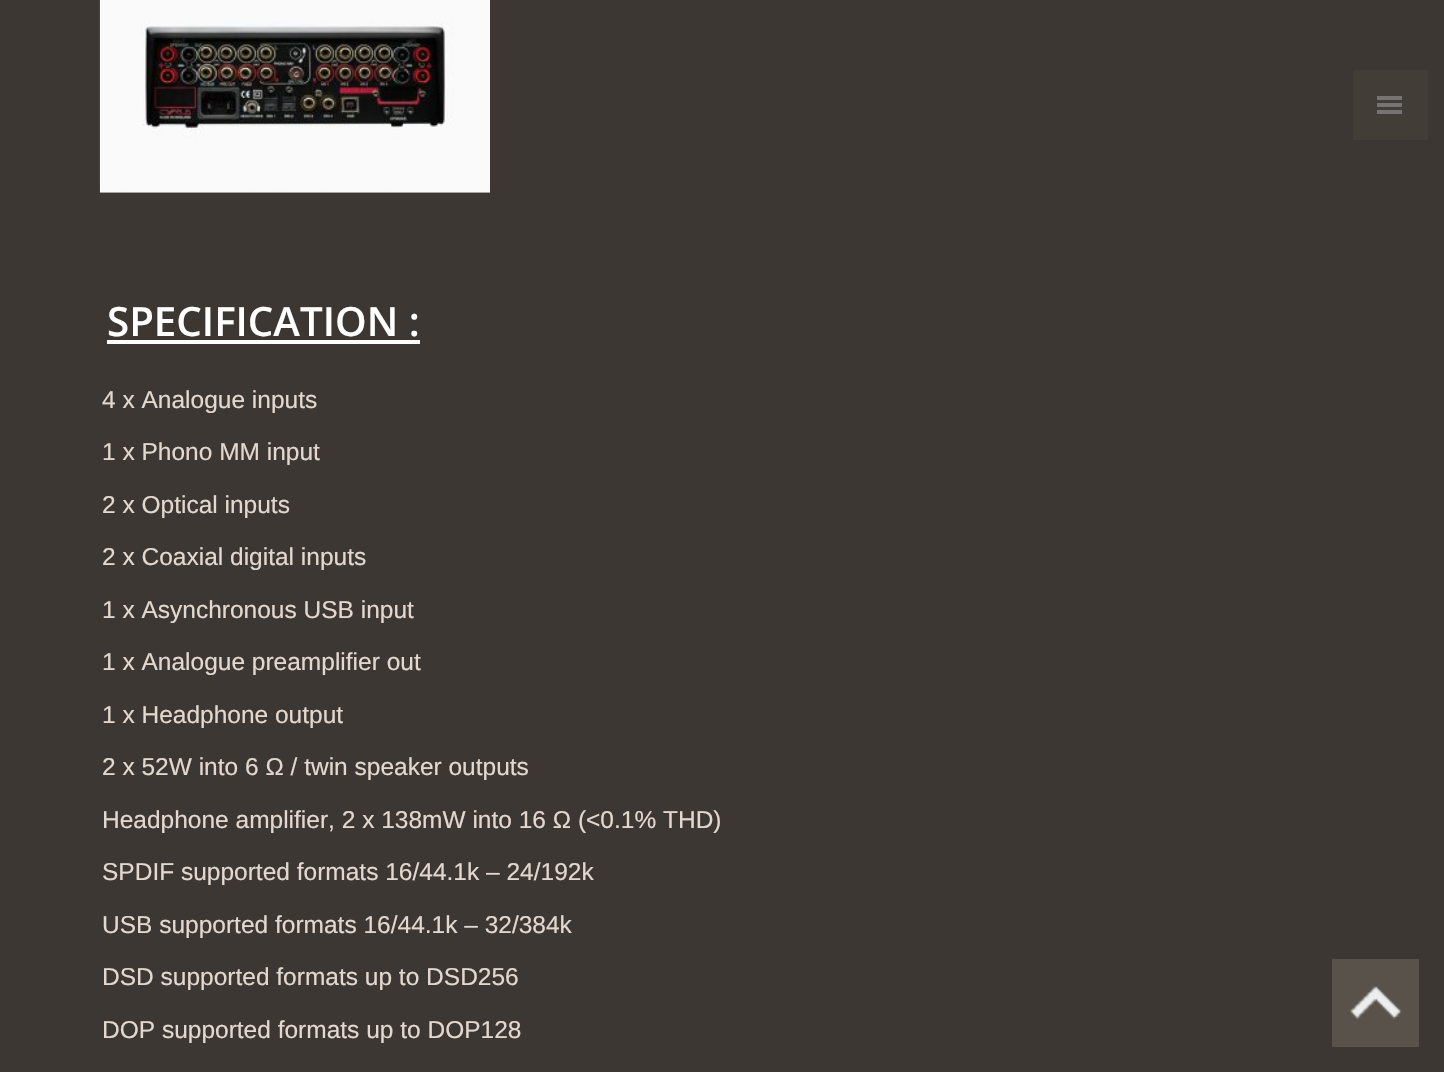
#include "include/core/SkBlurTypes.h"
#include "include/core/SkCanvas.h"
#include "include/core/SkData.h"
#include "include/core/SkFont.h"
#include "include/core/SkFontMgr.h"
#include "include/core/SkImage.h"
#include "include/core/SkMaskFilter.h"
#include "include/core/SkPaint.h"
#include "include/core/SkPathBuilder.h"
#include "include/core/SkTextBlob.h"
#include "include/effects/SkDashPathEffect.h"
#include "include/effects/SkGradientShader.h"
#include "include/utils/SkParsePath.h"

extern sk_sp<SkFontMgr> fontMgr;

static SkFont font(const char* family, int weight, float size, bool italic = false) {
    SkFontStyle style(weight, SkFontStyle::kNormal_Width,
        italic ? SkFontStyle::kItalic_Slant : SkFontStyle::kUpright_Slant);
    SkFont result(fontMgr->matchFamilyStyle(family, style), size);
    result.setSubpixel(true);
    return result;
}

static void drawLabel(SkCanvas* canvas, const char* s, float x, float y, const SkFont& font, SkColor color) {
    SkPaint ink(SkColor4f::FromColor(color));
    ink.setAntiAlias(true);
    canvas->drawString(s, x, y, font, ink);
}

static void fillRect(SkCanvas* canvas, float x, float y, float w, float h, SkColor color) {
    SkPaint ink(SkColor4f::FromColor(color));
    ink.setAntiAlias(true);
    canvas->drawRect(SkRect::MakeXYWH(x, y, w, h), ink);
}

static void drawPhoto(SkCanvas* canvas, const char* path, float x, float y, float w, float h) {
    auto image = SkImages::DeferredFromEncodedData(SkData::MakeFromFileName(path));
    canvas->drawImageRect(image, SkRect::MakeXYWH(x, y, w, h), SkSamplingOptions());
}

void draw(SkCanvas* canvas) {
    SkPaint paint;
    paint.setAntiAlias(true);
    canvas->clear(0xFF3C3732);
    fillRect(canvas, 1353, 70, 75, 70, 0xFF433D38);
    fillRect(canvas, 1377, 110, 25, 4, 0xFF777370);
    fillRect(canvas, 1377, 103, 25, 4, 0xFF777370);
    fillRect(canvas, 1377, 96, 25, 4, 0xFF777370);
    drawPhoto(canvas, "assets/img1.png", 99, 0, 391, 193);
    SkFont font1 = font("Open Sans", 600, 40.25f);
    drawLabel(canvas, "SPECIFICATION :", 107, 336, font1, 0xFFFFFFFF);
    fillRect(canvas, 107, 340, 313, 4, 0xFFFFFFFF);
    SkFont font2 = font("Liberation Sans", 400, 24.5f);
    drawLabel(canvas, "4 x Analogue inputs", 102, 408, font2, 0xFFE3D8CF);
    drawLabel(canvas, "1 x Phono MM input", 102, 460, font2, 0xFFE3D8CF);
    drawLabel(canvas, "2 x Optical inputs", 102, 513, font2, 0xFFE3D8CF);
    drawLabel(canvas, "2 x Coaxial digital inputs", 102, 565, font2, 0xFFE3D8CF);
    drawLabel(canvas, "1 x Asynchronous USB input", 102, 618, font2, 0xFFE3D8CF);
    drawLabel(canvas, "1 x Analogue preamplifier out", 102, 670, font2, 0xFFE3D8CF);
    drawLabel(canvas, "1 x Headphone output", 102, 723, font2, 0xFFE3D8CF);
    drawLabel(canvas, "2 x 52W into 6 Ω / twin speaker outputs", 102, 775, font2, 0xFFE3D8CF);
    drawLabel(canvas, "Headphone amplifier, 2 x 138mW into 16 Ω (<0.1% THD)", 102, 828, font2, 0xFFE3D8CF);
    drawLabel(canvas, "SPDIF supported formats 16/44.1k – 24/192k", 102, 880, font2, 0xFFE3D8CF);
    drawLabel(canvas, "USB supported formats 16/44.1k – 32/384k", 102, 933, font2, 0xFFE3D8CF);
    drawLabel(canvas, "DSD supported formats up to DSD256", 102, 985, font2, 0xFFE3D8CF);
    drawLabel(canvas, "DOP supported formats up to DOP128", 102, 1038, font2, 0xFFE3D8CF);
    fillRect(canvas, 1332, 959, 87, 88, 0xFF59524B);
    drawPhoto(canvas, "assets/img2.png", 1350, 986, 51, 33);
}
